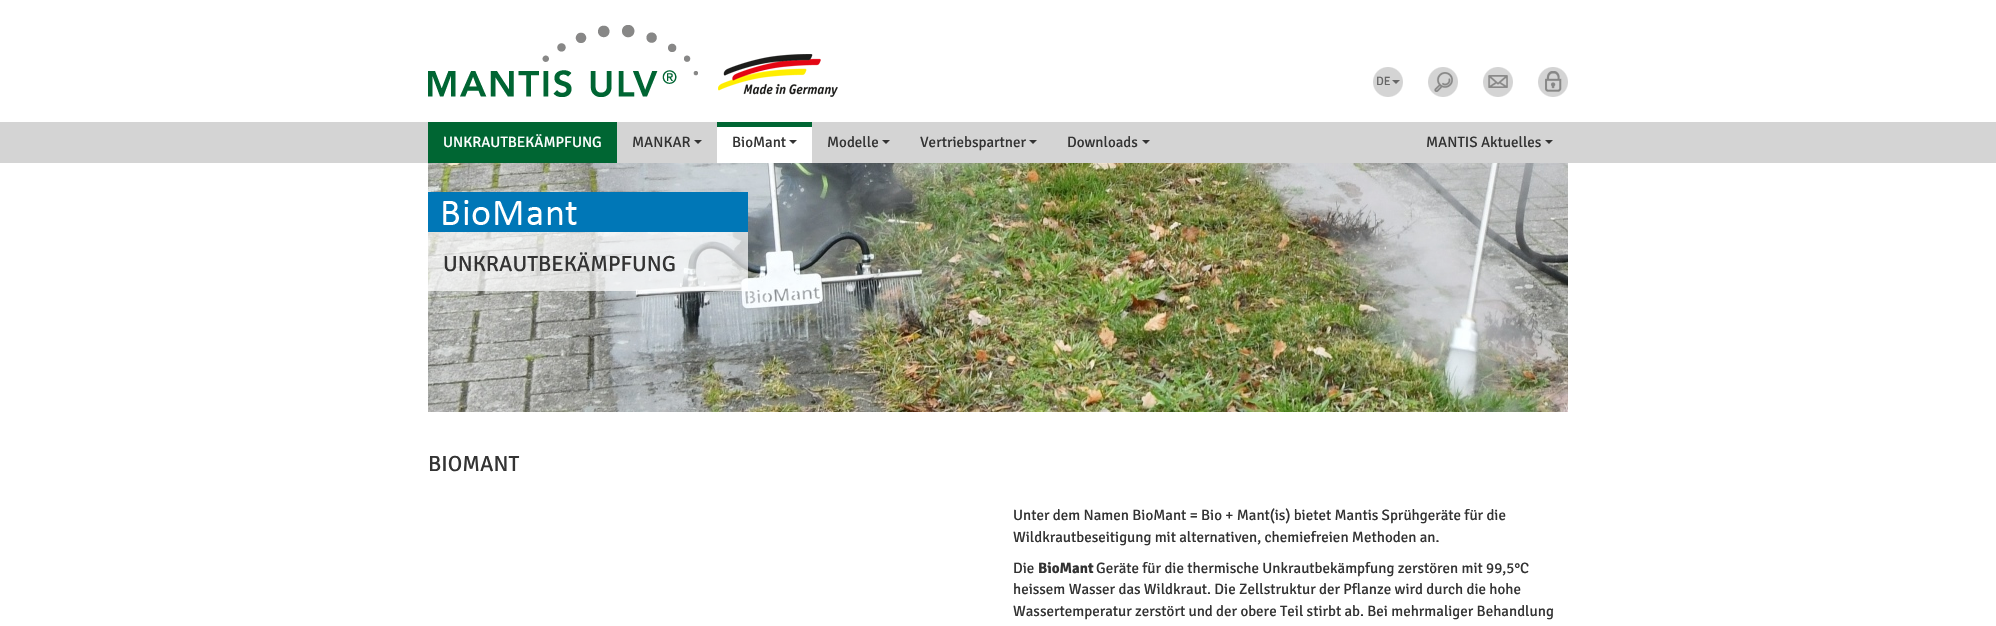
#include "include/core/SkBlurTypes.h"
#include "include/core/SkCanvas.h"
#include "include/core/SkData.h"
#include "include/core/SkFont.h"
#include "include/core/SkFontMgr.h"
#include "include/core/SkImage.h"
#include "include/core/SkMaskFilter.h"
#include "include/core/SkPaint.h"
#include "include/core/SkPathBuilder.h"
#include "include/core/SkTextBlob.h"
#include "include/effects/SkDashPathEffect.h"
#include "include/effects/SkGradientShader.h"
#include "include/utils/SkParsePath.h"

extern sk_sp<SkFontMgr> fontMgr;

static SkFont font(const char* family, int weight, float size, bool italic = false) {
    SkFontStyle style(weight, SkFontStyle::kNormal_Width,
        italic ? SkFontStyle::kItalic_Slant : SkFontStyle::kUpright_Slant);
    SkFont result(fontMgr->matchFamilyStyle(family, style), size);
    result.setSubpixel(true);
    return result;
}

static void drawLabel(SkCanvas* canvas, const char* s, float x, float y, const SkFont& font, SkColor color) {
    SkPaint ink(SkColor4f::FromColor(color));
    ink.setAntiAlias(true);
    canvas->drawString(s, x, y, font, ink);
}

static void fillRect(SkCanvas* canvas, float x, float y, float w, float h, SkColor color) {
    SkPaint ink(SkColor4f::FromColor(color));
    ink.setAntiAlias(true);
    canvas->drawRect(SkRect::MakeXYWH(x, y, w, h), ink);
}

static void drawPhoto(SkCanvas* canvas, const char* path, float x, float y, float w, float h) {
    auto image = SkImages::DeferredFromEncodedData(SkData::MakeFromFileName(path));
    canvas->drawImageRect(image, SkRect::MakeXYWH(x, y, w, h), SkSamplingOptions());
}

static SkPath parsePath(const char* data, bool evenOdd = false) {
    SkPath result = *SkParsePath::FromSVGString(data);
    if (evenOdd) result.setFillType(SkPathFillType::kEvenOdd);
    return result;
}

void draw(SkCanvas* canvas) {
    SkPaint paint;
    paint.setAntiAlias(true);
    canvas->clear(0xFFFFFFFF);
    drawPhoto(canvas, "assets/img1.png", 428, 25, 410, 72);
    drawPhoto(canvas, "assets/img2.png", 1373, 67, 30, 30);
    SkFont font1 = font("Signika", 400, 12);
    drawLabel(canvas, "DE", 1376, 85, font1, 0xFF666666);
    paint.setColor(0xFF666666);
    canvas->drawPath(parsePath("M1392 80H1400L1396 84Z"), paint);
    drawPhoto(canvas, "assets/img2.png", 1428, 67, 30, 30);
    drawPhoto(canvas, "assets/img3.png", 1434, 72, 19, 20);
    drawPhoto(canvas, "assets/img2.png", 1483, 67, 30, 30);
    drawPhoto(canvas, "assets/img4.png", 1488, 75, 20, 13);
    drawPhoto(canvas, "assets/img2.png", 1538, 67, 30, 30);
    drawPhoto(canvas, "assets/img5.png", 1545, 71, 17, 21);
    fillRect(canvas, 0, 122, 1996, 41, 0xFFD4D4D4);
    fillRect(canvas, 428, 122, 189, 41, 0xFF006633);
    SkFont font2 = font("Signika", 400, 15);
    drawLabel(canvas, "UNKRAUTBEKÄMPFUNG", 443, 147, font2, 0xFFFFFFFF);
    drawLabel(canvas, "MANKAR", 632, 147, font2, 0xFF333333);
    paint.setColor(0xFF333333);
    canvas->drawPath(parsePath("M694 140H702L698 144Z"), paint);
    fillRect(canvas, 717, 127, 95, 36, 0xFFFFFFFF);
    fillRect(canvas, 717, 122, 95, 5, 0xFF006633);
    drawLabel(canvas, "BioMant", 732, 147, font2, 0xFF333333);
    canvas->drawPath(parsePath("M789 140H797L793 144Z"), paint);
    drawLabel(canvas, "Modelle", 827, 147, font2, 0xFF333333);
    canvas->drawPath(parsePath("M882 140H890L886 144Z"), paint);
    drawLabel(canvas, "Vertriebspartner", 920, 147, font2, 0xFF333333);
    canvas->drawPath(parsePath("M1029 140H1037L1033 144Z"), paint);
    drawLabel(canvas, "Downloads", 1067, 147, font2, 0xFF333333);
    canvas->drawPath(parsePath("M1142 140H1150L1146 144Z"), paint);
    drawLabel(canvas, "MANTIS Aktuelles", 1426, 147, font2, 0xFF333333);
    canvas->drawPath(parsePath("M1545 140H1553L1549 144Z"), paint);
    drawPhoto(canvas, "assets/img6.png", 428, 163, 1140, 249);
    drawPhoto(canvas, "assets/img7.png", 428, 192, 320, 99);
    drawPhoto(canvas, "assets/img8.png", 443, 200, 134, 25);
    SkFont font3 = font("Signika", 400, 22);
    drawLabel(canvas, "UNKRAUTBEKÄMPFUNG", 443, 271, font3, 0xFF333333);
    drawLabel(canvas, "BIOMANT", 428, 471, font3, 0xFF333333);
    drawLabel(canvas, "Unter dem Namen BioMant = Bio + Mant(is) bietet Mantis Sprühgeräte für die", 1013, 520, font2, 0xFF333333);
    drawLabel(canvas, "Wildkrautbeseitigung mit alternativen, chemiefreien Methoden an.", 1013, 542, font2, 0xFF333333);
    drawLabel(canvas, "Die", 1013, 573, font2, 0xFF333333);
    SkFont font4 = font("Signika", 700, 15);
    drawLabel(canvas, "BioMant", 1038, 573, font4, 0xFF333333);
    drawLabel(canvas, "Geräte für die thermische Unkrautbekämpfung zerstören mit 99,5°C", 1096, 573, font2, 0xFF333333);
    drawLabel(canvas, "heissem Wasser das Wildkraut. Die Zellstruktur der Pflanze wird durch die hohe", 1013, 594, font2, 0xFF333333);
    drawLabel(canvas, "Wassertemperatur zerstört und der obere Teil stirbt ab. Bei mehrmaliger Behandlung", 1013, 616, font2, 0xFF333333);
}
